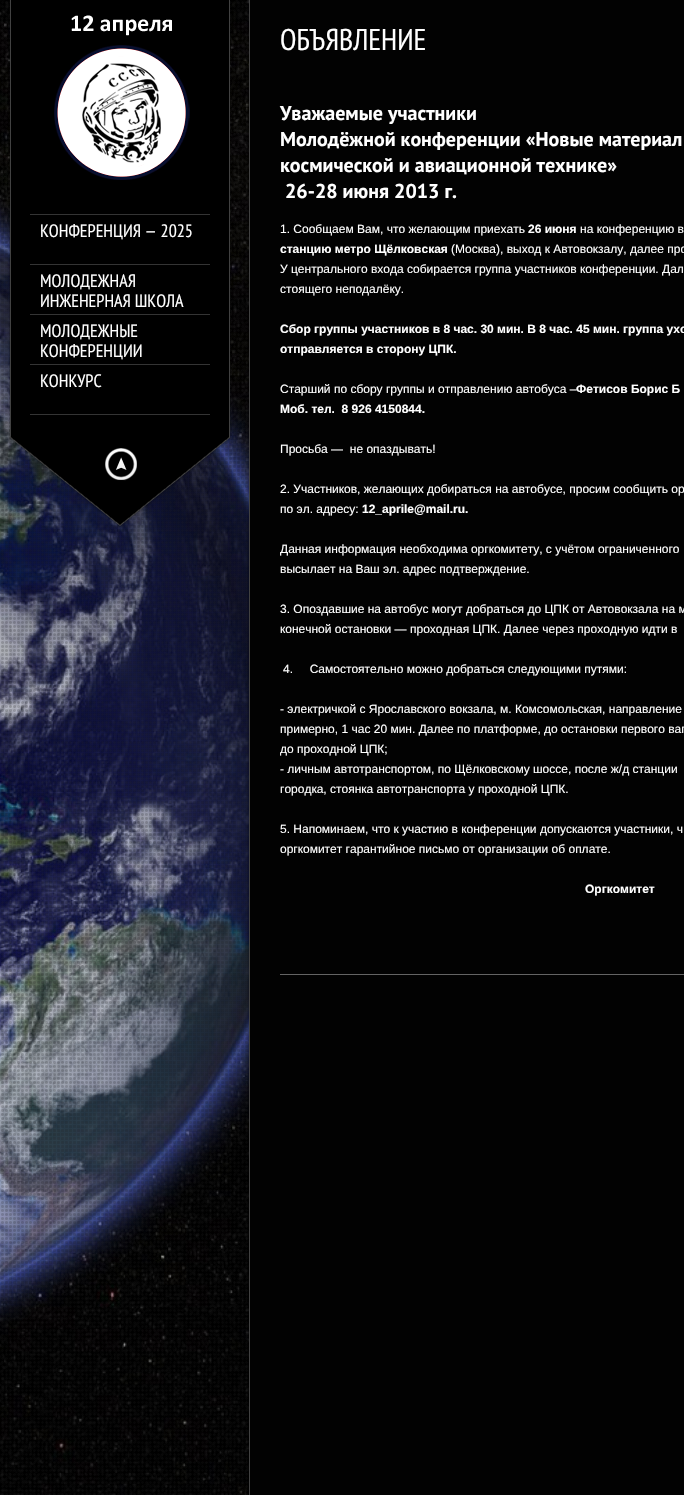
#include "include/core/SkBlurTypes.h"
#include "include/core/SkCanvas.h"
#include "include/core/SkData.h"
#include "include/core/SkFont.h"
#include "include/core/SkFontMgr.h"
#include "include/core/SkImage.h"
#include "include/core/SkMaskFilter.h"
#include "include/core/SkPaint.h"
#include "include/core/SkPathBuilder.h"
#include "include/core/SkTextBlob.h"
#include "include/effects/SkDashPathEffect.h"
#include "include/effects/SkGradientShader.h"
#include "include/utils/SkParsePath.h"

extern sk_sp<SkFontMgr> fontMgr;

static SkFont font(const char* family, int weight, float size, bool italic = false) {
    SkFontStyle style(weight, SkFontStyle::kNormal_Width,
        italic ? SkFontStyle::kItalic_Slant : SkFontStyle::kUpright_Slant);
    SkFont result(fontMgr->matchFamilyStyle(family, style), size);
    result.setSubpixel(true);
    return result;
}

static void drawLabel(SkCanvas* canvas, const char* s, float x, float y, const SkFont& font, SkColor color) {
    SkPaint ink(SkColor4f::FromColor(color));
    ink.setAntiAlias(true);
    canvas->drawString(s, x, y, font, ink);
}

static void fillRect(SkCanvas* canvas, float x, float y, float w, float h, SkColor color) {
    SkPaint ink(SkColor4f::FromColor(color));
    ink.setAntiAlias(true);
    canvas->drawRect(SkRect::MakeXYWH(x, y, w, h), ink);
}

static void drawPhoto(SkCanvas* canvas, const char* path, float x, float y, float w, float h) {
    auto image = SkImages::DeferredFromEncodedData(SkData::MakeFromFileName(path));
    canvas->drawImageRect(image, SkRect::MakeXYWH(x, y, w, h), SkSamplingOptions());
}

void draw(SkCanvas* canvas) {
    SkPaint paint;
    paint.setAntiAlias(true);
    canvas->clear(0xFFFFFFFF);
    drawPhoto(canvas, "assets/img1.png", 0, 0, 249, 1495);
    drawPhoto(canvas, "assets/img2.png", 0, 1, 249, 1494);
    drawPhoto(canvas, "assets/img3.png", 7, 0, 225, 435);
    drawPhoto(canvas, "assets/img4.png", 54, 15, 136, 165);
    fillRect(canvas, 30, 214, 180, 1, 0xFF343434);
    fillRect(canvas, 30, 264, 180, 1, 0xFF343434);
    SkFont font1 = font("PT Sans Narrow", 400, 18);
    drawLabel(canvas, "КОНФЕРЕНЦИЯ — 2025", 40, 237, font1, 0xFFFFFFFF);
    fillRect(canvas, 30, 314, 180, 1, 0xFF343434);
    drawLabel(canvas, "МОЛОДЕЖНАЯ", 40, 287, font1, 0xFFFFFFFF);
    drawLabel(canvas, "ИНЖЕНЕРНАЯ ШКОЛА", 40, 307, font1, 0xFFFFFFFF);
    fillRect(canvas, 30, 364, 180, 1, 0xFF343434);
    drawLabel(canvas, "МОЛОДЕЖНЫЕ", 40, 337, font1, 0xFFFFFFFF);
    drawLabel(canvas, "КОНФЕРЕНЦИИ", 40, 357, font1, 0xFFFFFFFF);
    fillRect(canvas, 30, 414, 180, 1, 0xFF343434);
    drawLabel(canvas, "КОНКУРС", 40, 387, font1, 0xFFFFFFFF);
    drawPhoto(canvas, "assets/img5.png", 8, 435, 224, 92);
    drawPhoto(canvas, "assets/img6.png", 105, 448, 32, 33);
    drawPhoto(canvas, "assets/img7.png", 246, 0, 438, 1495);
    SkFont font2 = font("PT Sans Narrow", 400, 30);
    drawLabel(canvas, "ОБЪЯВЛЕНИЕ", 280, 50, font2, 0xFFFFFFFF);
    SkFont font3 = font("PT Sans", 700, 20);
    drawLabel(canvas, "Уважаемые участники", 280, 120, font3, 0xFFFFFFFF);
    drawLabel(canvas, "Молодёжной конференции «Новые материал", 280, 146, font3, 0xFFFFFFFF);
    drawLabel(canvas, "космической и авиационной технике»", 280, 172, font3, 0xFFFFFFFF);
    drawLabel(canvas, "26-28 июня 2013 г.", 285, 198, font3, 0xFFFFFFFF);
    SkFont font4 = font("Liberation Sans", 400, 12);
    drawLabel(canvas, "1. Сообщаем Вам, что желающим приехать", 280, 233, font4, 0xFFFFFFFF);
    SkFont font5 = font("Liberation Sans", 700, 12);
    drawLabel(canvas, "26 июня", 528, 233, font5, 0xFFFFFFFF);
    drawLabel(canvas, "на конференцию в", 580, 233, font4, 0xFFFFFFFF);
    drawLabel(canvas, "станцию метро Щёлковская", 280, 253, font5, 0xFFFFFFFF);
    drawLabel(canvas, "(Москва), выход к Автовокзалу, далее про", 451, 253, font4, 0xFFFFFFFF);
    drawLabel(canvas, "У центрального входа собирается группа участников конференции. Дал", 280, 273, font4, 0xFFFFFFFF);
    drawLabel(canvas, "стоящего неподалёку.", 280, 293, font4, 0xFFFFFFFF);
    drawLabel(canvas, "Сбор группы участников в 8 час. 30 мин. В 8 час. 45 мин. группа ухо", 280, 333, font5, 0xFFFFFFFF);
    drawLabel(canvas, "отправляется в сторону ЦПК.", 280, 353, font5, 0xFFFFFFFF);
    drawLabel(canvas, "Старший по сбору группы и отправлению автобуса –", 280, 393, font4, 0xFFFFFFFF);
    drawLabel(canvas, "Фетисов Борис Б", 576, 393, font5, 0xFFFFFFFF);
    drawLabel(canvas, "Моб. тел.  8 926 4150844.", 280, 413, font5, 0xFFFFFFFF);
    drawLabel(canvas, "Просьба —  не опаздывать!", 280, 453, font4, 0xFFFFFFFF);
    drawLabel(canvas, "2. Участников, желающих добираться на автобусе, просим сообщить ор", 280, 493, font4, 0xFFFFFFFF);
    drawLabel(canvas, "по эл. адресу:", 280, 513, font4, 0xFFFFFFFF);
    drawLabel(canvas, "12_aprile@mail.ru.", 362, 513, font5, 0xFFFFFFFF);
    drawLabel(canvas, "Данная информация необходима оргкомитету, с учётом ограниченного", 280, 553, font4, 0xFFFFFFFF);
    drawLabel(canvas, "высылает на Ваш эл. адрес подтверждение.", 280, 573, font4, 0xFFFFFFFF);
    drawLabel(canvas, "3. Опоздавшие на автобус могут добраться до ЦПК от Автовокзала на м", 280, 613, font4, 0xFFFFFFFF);
    drawLabel(canvas, "конечной остановки — проходная ЦПК. Далее через проходную идти в", 280, 633, font4, 0xFFFFFFFF);
    drawLabel(canvas, "4.     Самостоятельно можно добраться следующими путями:", 283, 673, font4, 0xFFFFFFFF);
    drawLabel(canvas, "- электричкой с Ярославского вокзала, м. Комсомольская, направление", 280, 713, font4, 0xFFFFFFFF);
    drawLabel(canvas, "примерно, 1 час 20 мин. Далее по платформе, до остановки первого ваг", 280, 733, font4, 0xFFFFFFFF);
    drawLabel(canvas, "до проходной ЦПК;", 280, 753, font4, 0xFFFFFFFF);
    drawLabel(canvas, "- личным автотранспортом, по Щёлковскому шоссе, после ж/д станции", 280, 773, font4, 0xFFFFFFFF);
    drawLabel(canvas, "городка, стоянка автотранспорта у проходной ЦПК.", 280, 793, font4, 0xFFFFFFFF);
    drawLabel(canvas, "5. Напоминаем, что к участию в конференции допускаются участники, ч", 280, 833, font4, 0xFFFFFFFF);
    drawLabel(canvas, "оргкомитет гарантийное письмо от организации об оплате.", 280, 853, font4, 0xFFFFFFFF);
    drawLabel(canvas, "Оргкомитет", 585, 893, font5, 0xFFFFFFFF);
    fillRect(canvas, 280, 974, 404, 1, 0xFF646464);
}
